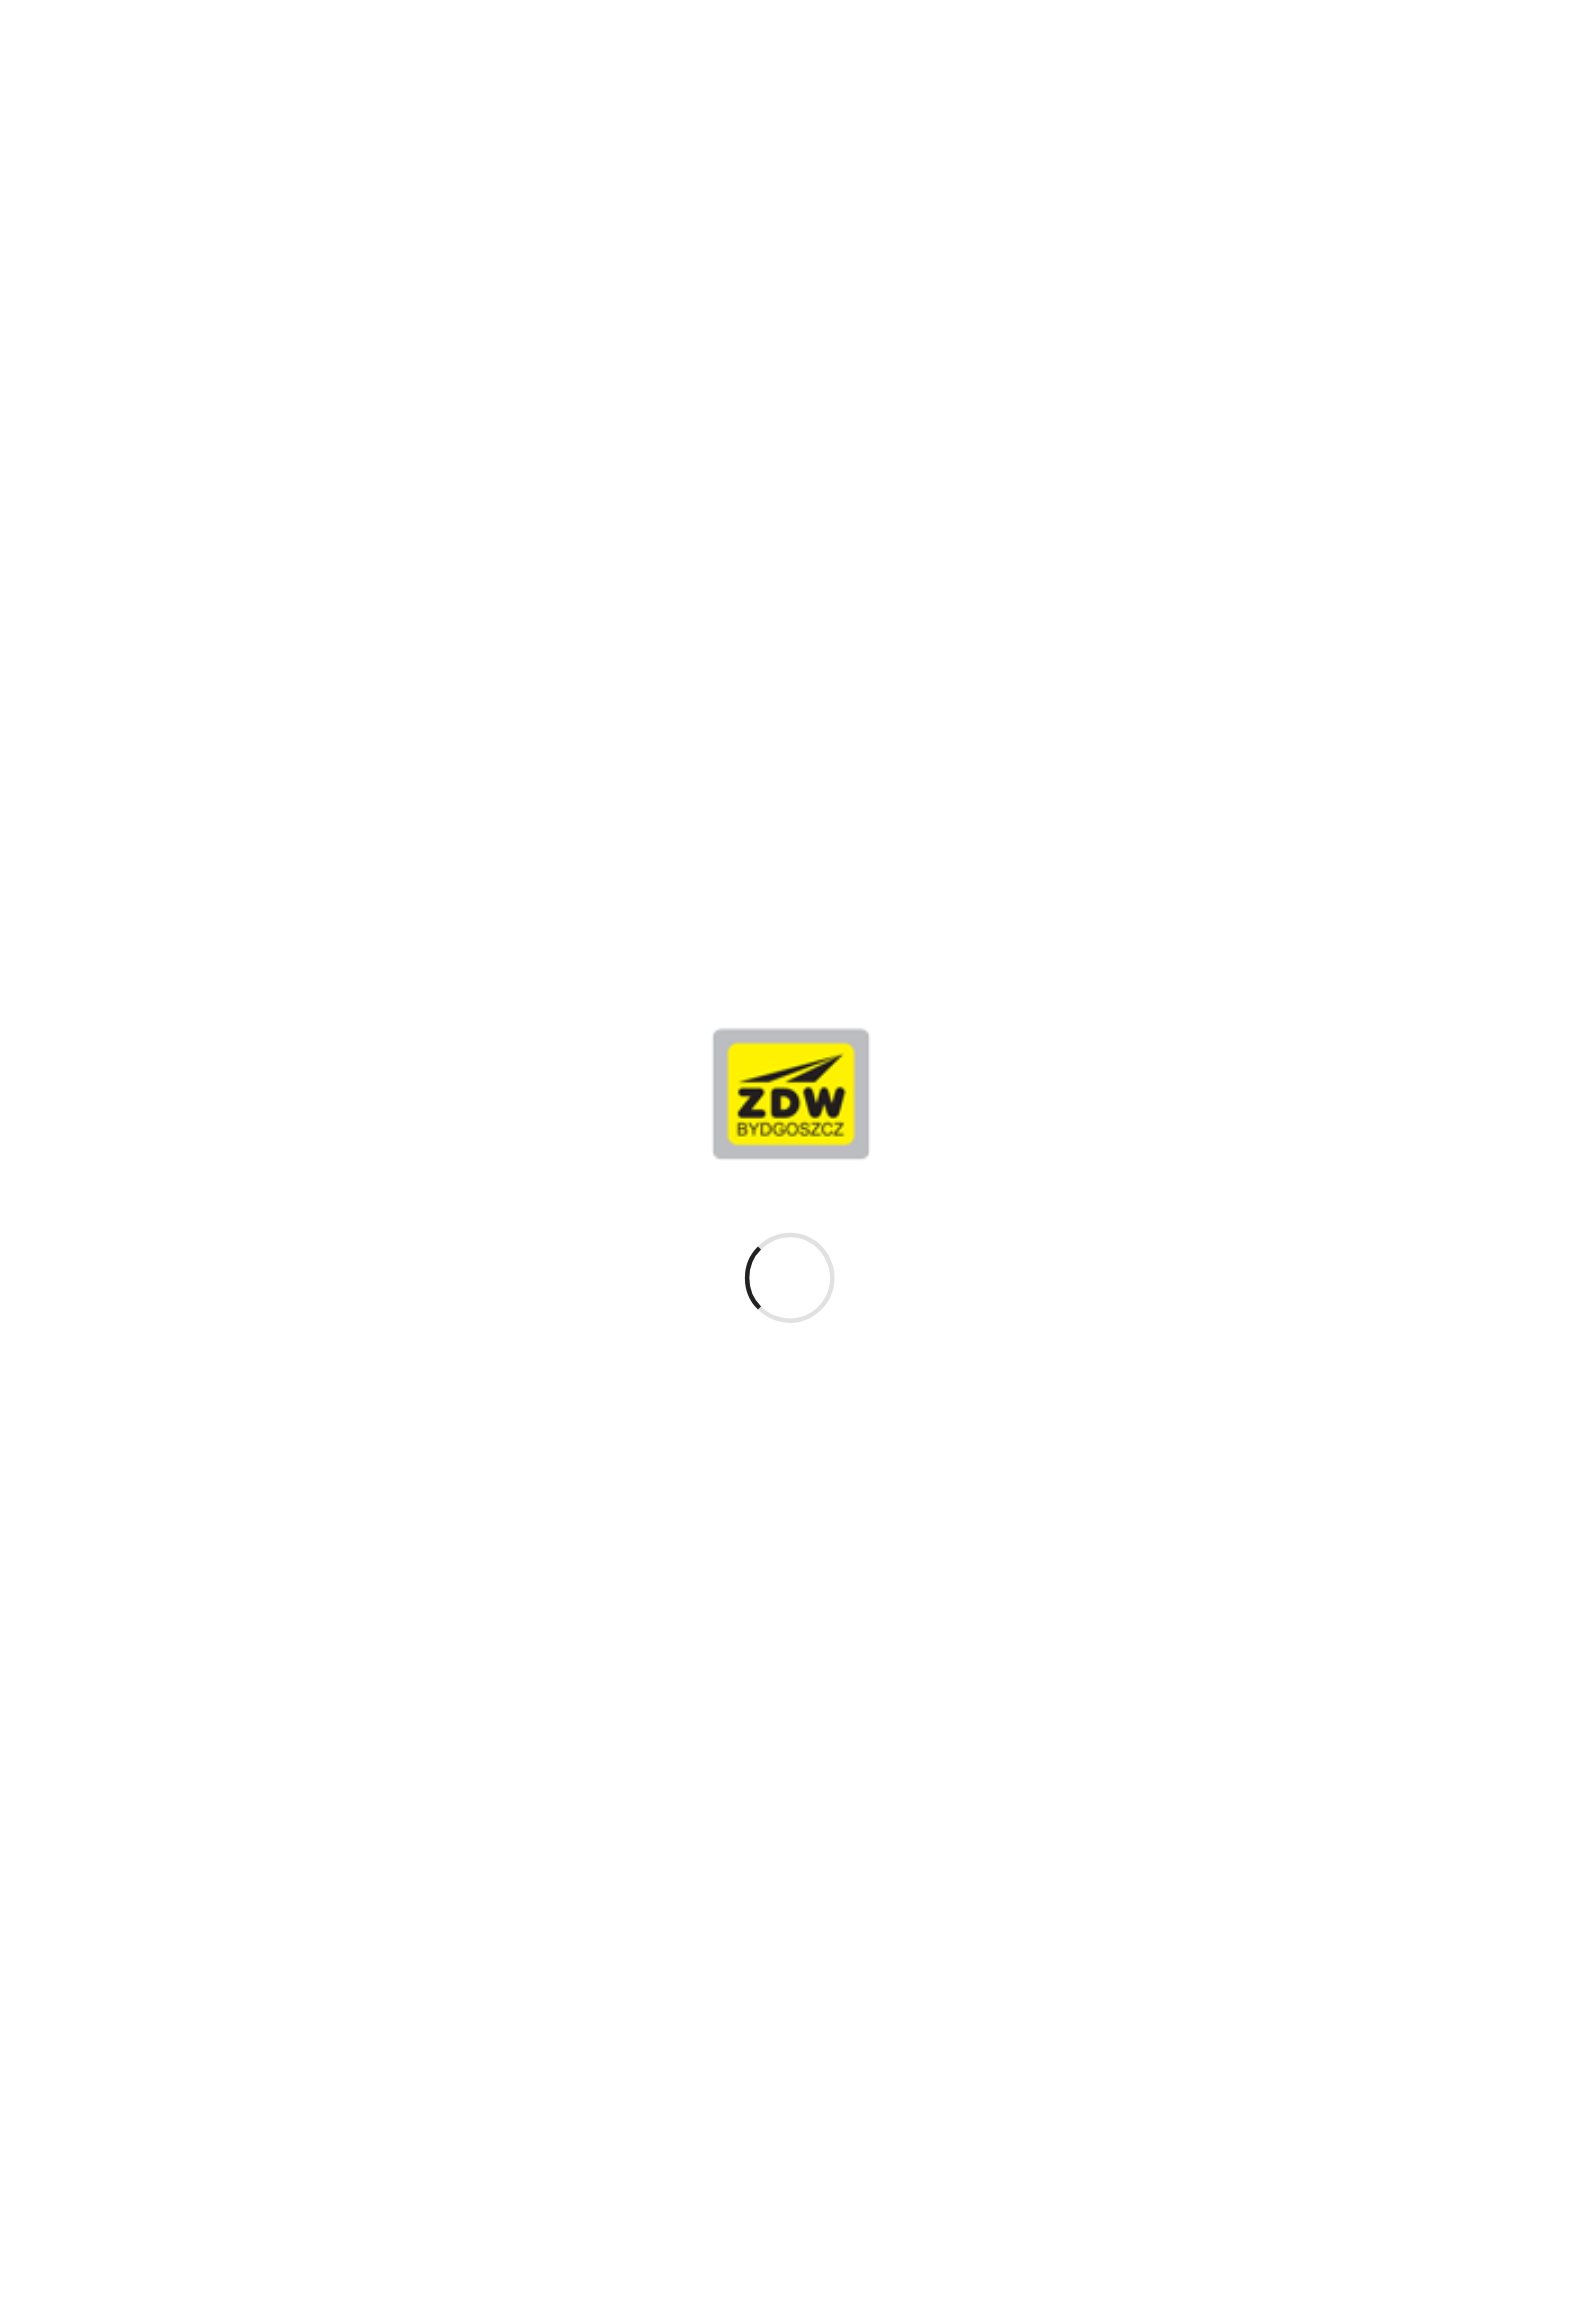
#include "include/core/SkBlurTypes.h"
#include "include/core/SkCanvas.h"
#include "include/core/SkData.h"
#include "include/core/SkFont.h"
#include "include/core/SkFontMgr.h"
#include "include/core/SkImage.h"
#include "include/core/SkMaskFilter.h"
#include "include/core/SkPaint.h"
#include "include/core/SkPathBuilder.h"
#include "include/core/SkTextBlob.h"
#include "include/effects/SkDashPathEffect.h"
#include "include/effects/SkGradientShader.h"
#include "include/utils/SkParsePath.h"

extern sk_sp<SkFontMgr> fontMgr;

static void drawPhoto(SkCanvas* canvas, const char* path, float x, float y, float w, float h) {
    auto image = SkImages::DeferredFromEncodedData(SkData::MakeFromFileName(path));
    canvas->drawImageRect(image, SkRect::MakeXYWH(x, y, w, h), SkSamplingOptions());
}

static SkPath parsePath(const char* data, bool evenOdd = false) {
    SkPath result = *SkParsePath::FromSVGString(data);
    if (evenOdd) result.setFillType(SkPathFillType::kEvenOdd);
    return result;
}

void draw(SkCanvas* canvas) {
    SkPaint paint;
    paint.setAntiAlias(true);
    canvas->clear(0xFFFFFFFF);
    drawPhoto(canvas, "assets/img1.png", 711, 1027, 160, 134);
    paint.setStroke(true);
    paint.setStrokeWidth(4.5f);
    paint.setColor(0xFFE1E1E1);
    canvas->drawPath(parsePath("M759.5 1248C767.5 1240 778.5 1235 790 1235C827.5 1235 846.5 1281.5 820 1308C814 1314 806.5 1318.5 798 1320C784 1322.5 769.5 1318 759.5 1308"), paint);
    paint.setColor(0xFF222222);
    canvas->drawPath(parsePath("M759.5 1308C743 1292 743 1264 759.5 1248"), paint);
}
